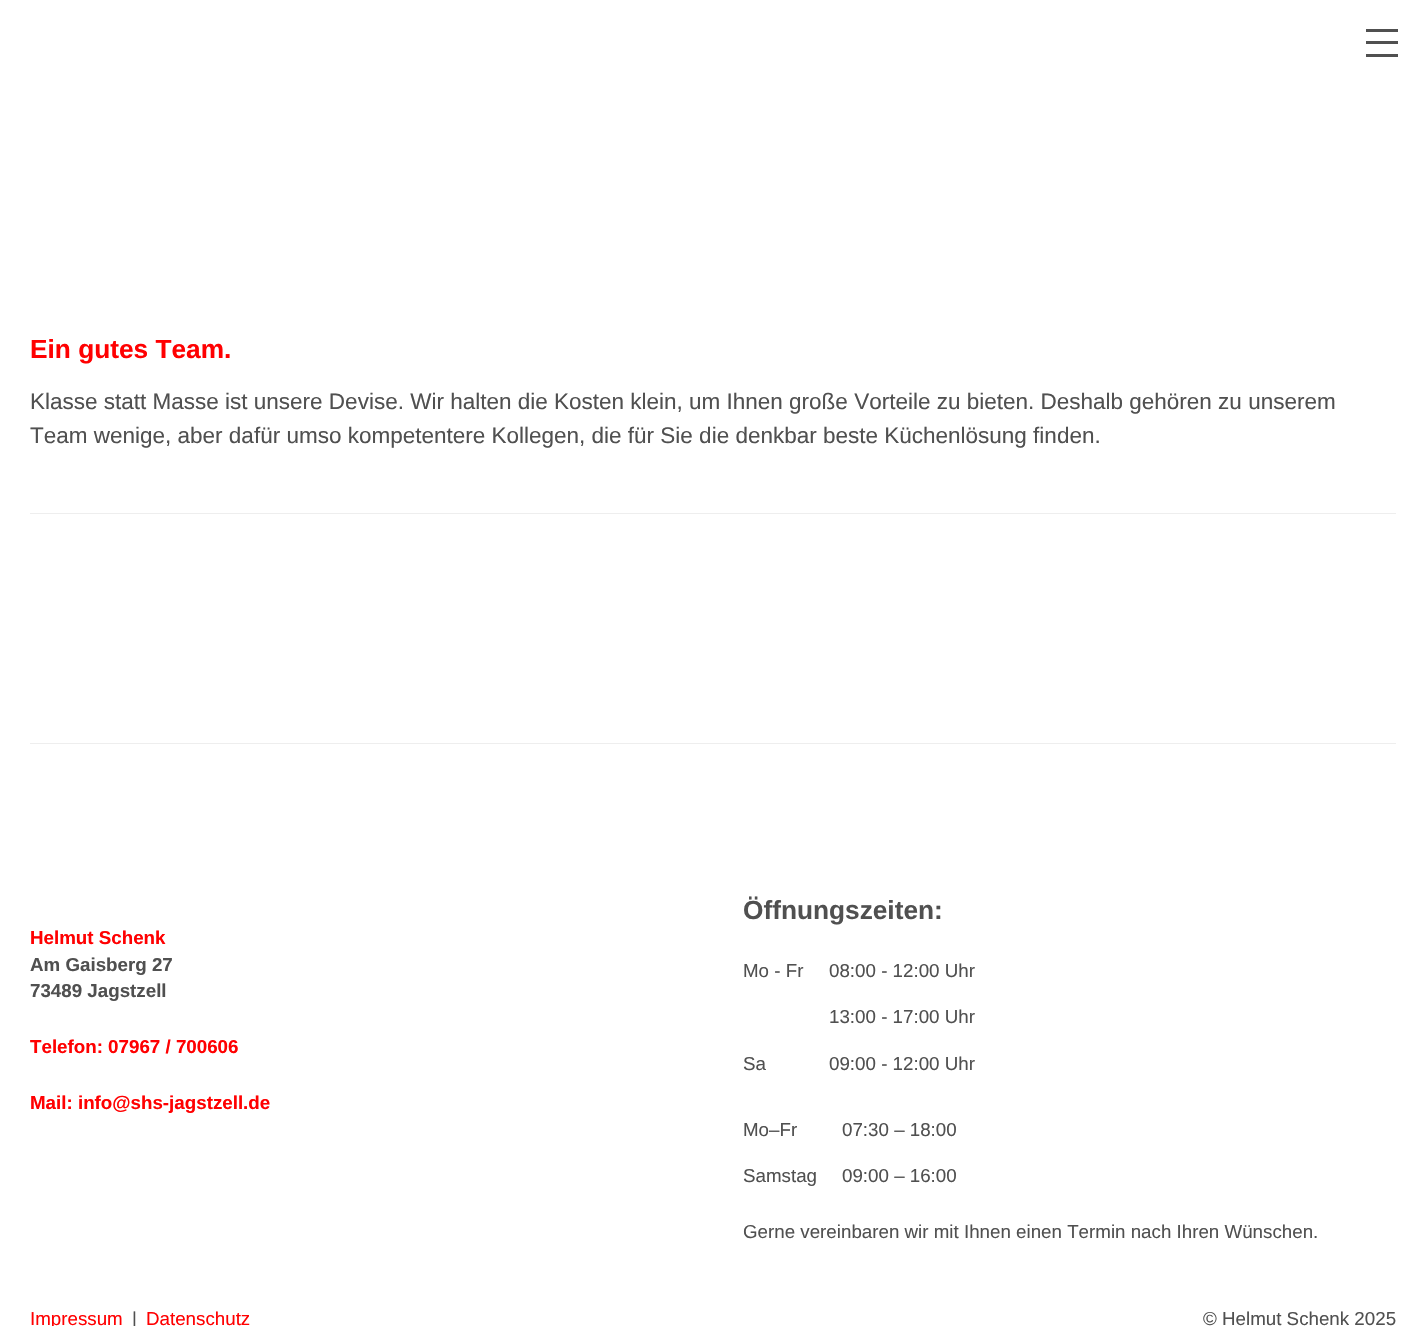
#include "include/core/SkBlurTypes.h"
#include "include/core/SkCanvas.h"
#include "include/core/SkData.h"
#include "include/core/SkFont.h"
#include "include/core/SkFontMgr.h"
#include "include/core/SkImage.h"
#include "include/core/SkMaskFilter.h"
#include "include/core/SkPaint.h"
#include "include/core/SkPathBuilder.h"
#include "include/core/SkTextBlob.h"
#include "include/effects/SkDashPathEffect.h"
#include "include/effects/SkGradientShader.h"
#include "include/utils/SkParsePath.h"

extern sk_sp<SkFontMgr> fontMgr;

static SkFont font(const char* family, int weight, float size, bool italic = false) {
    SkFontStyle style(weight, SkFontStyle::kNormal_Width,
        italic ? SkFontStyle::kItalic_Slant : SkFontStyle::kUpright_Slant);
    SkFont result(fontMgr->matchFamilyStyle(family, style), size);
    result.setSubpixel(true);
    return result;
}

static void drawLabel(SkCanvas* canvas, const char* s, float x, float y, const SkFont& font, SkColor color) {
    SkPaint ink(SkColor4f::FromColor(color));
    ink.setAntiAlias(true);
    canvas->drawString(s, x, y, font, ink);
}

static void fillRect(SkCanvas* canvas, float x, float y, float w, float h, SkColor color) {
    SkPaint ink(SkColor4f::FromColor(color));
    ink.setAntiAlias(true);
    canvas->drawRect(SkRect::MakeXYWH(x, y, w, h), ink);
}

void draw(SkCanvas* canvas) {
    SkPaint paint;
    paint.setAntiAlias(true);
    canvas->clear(0xFFFFFFFF);
    fillRect(canvas, 1366, 41, 32, 3, 0xFF505050);
    fillRect(canvas, 1366, 29, 32, 3, 0xFF505050);
    fillRect(canvas, 1366, 54, 32, 3, 0xFF505050);
    SkFont font1 = font("Liberation Sans", 700, 26.25f);
    drawLabel(canvas, "Ein gutes Team.", 30, 358, font1, 0xFFFF0001);
    SkFont font2 = font("Liberation Sans", 400, 22.5f);
    drawLabel(canvas, "Klasse statt Masse ist unsere Devise. Wir halten die Kosten klein, um Ihnen große Vorteile zu bieten. Deshalb gehören zu unserem", 30, 409, font2, 0xFF505050);
    drawLabel(canvas, "Team wenige, aber dafür umso kompetentere Kollegen, die für Sie die denkbar beste Küchenlösung finden.", 30, 443, font2, 0xFF505050);
    fillRect(canvas, 30, 513, 1366, 1, 0xFFEEEEEE);
    fillRect(canvas, 30, 743, 1366, 1, 0xFFEEEEEE);
    SkFont font3 = font("Liberation Sans", 700, 18.75f);
    drawLabel(canvas, "Helmut Schenk", 30, 944, font3, 0xFFFF0001);
    drawLabel(canvas, "Am Gaisberg 27", 30, 971, font3, 0xFF505050);
    drawLabel(canvas, "73489 Jagstzell", 30, 997, font3, 0xFF505050);
    drawLabel(canvas, "Telefon: 07967 / 700606", 30, 1053, font3, 0xFFFF0001);
    drawLabel(canvas, "Mail: info@shs-jagstzell.de", 30, 1109, font3, 0xFFFF0001);
    drawLabel(canvas, "Öffnungszeiten:", 743, 919, font1, 0xFF505050);
    SkFont font4 = font("Liberation Sans", 400, 18.75f);
    drawLabel(canvas, "Mo - Fr", 743, 977, font4, 0xFF505050);
    drawLabel(canvas, "08:00 - 12:00 Uhr", 829, 977, font4, 0xFF505050);
    drawLabel(canvas, "13:00 - 17:00 Uhr", 829, 1023, font4, 0xFF505050);
    drawLabel(canvas, "Sa", 743, 1070, font4, 0xFF505050);
    drawLabel(canvas, "09:00 - 12:00 Uhr", 829, 1070, font4, 0xFF505050);
    drawLabel(canvas, "Mo–Fr", 743, 1136, font4, 0xFF505050);
    drawLabel(canvas, "07:30 – 18:00", 842, 1136, font4, 0xFF505050);
    drawLabel(canvas, "Samstag", 743, 1182, font4, 0xFF505050);
    drawLabel(canvas, "09:00 – 16:00", 842, 1182, font4, 0xFF505050);
    drawLabel(canvas, "Gerne vereinbaren wir mit Ihnen einen Termin nach Ihren Wünschen.", 743, 1238, font4, 0xFF505050);
    drawLabel(canvas, "Impressum", 30, 1325, font4, 0xFFFF0001);
    drawLabel(canvas, "|", 132, 1325, font4, 0xFF505050);
    drawLabel(canvas, "Datenschutz", 146, 1325, font4, 0xFFFF0001);
    drawLabel(canvas, "© Helmut Schenk 2025", 1203, 1325, font4, 0xFF505050);
}
